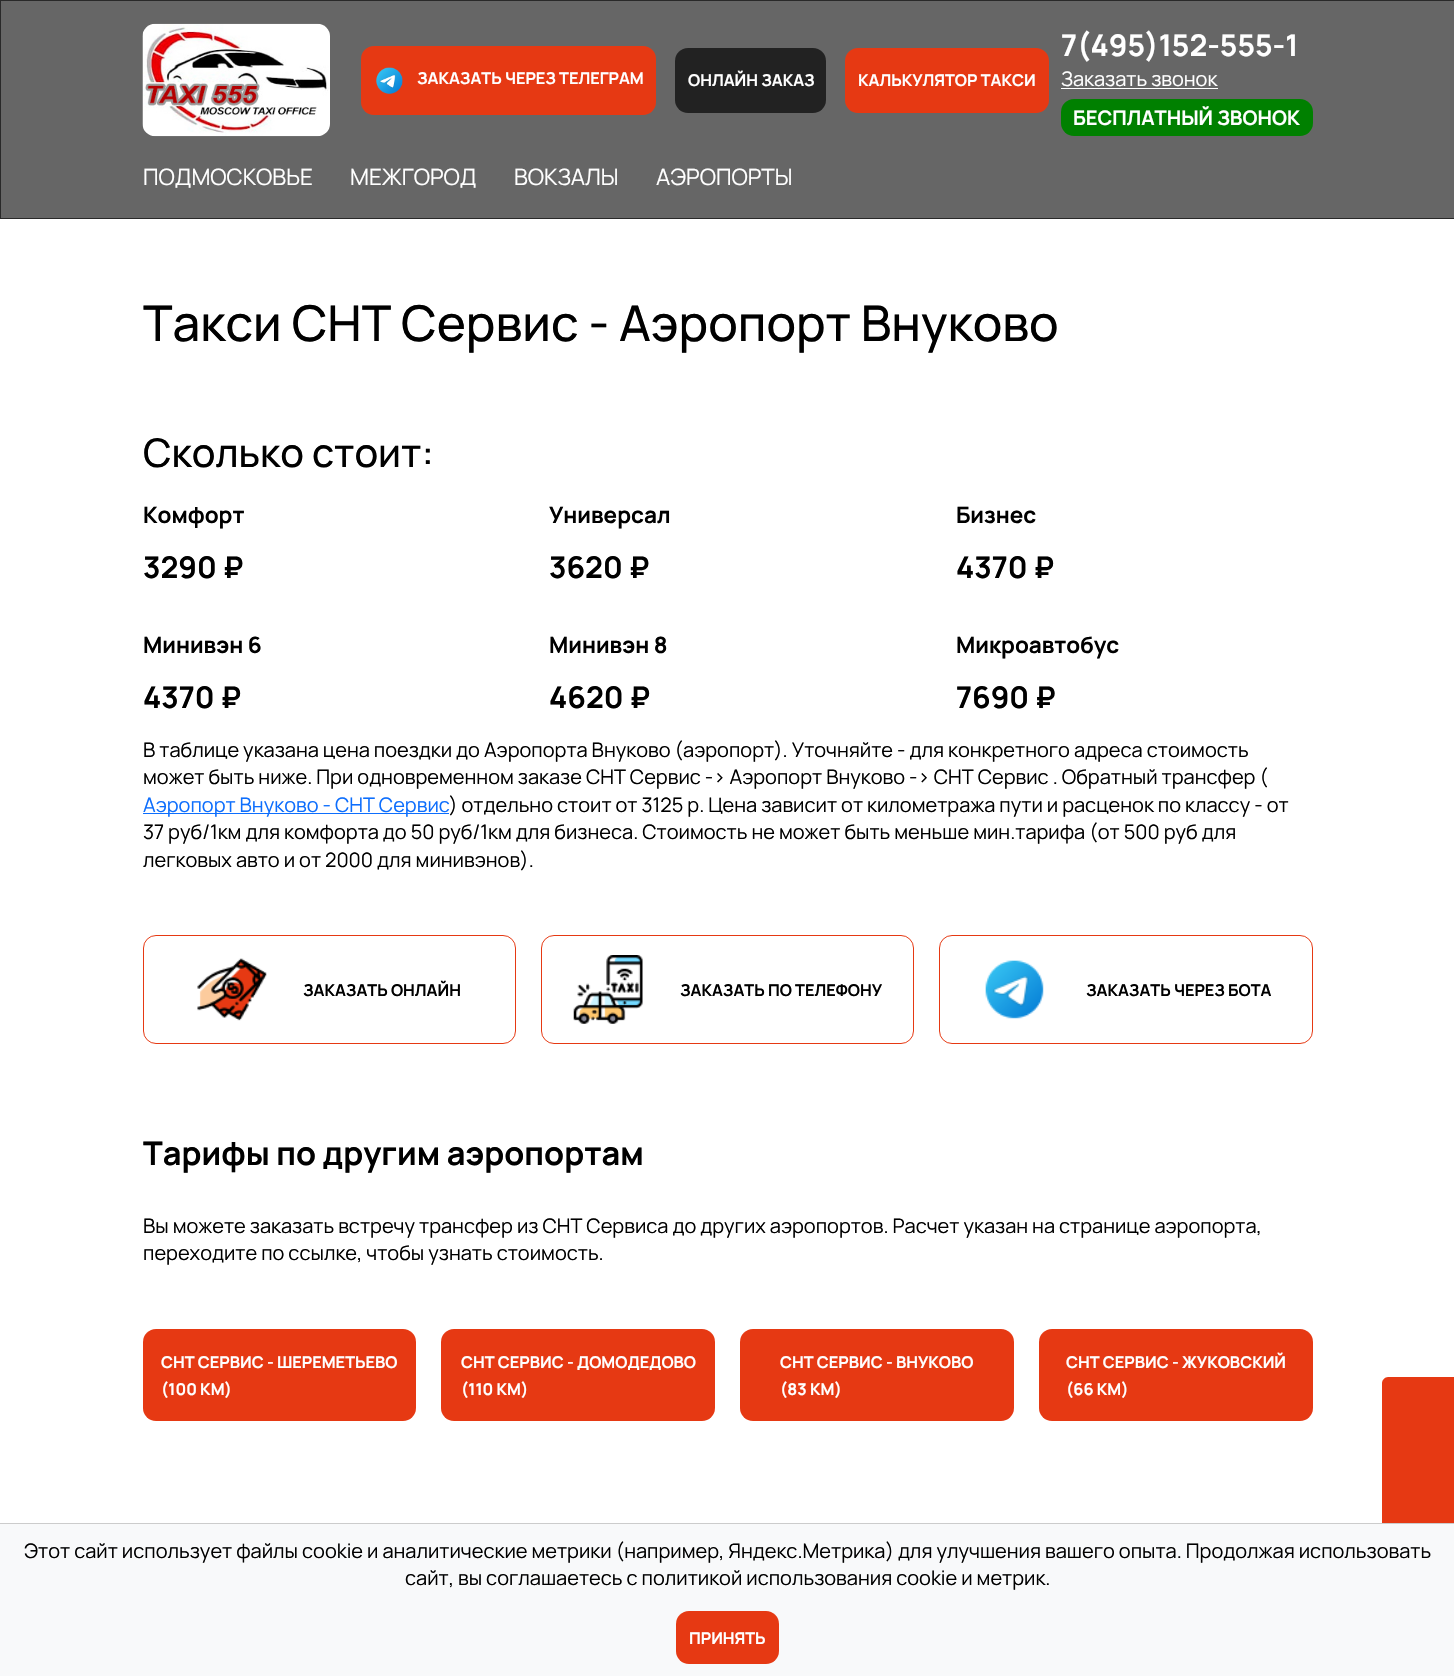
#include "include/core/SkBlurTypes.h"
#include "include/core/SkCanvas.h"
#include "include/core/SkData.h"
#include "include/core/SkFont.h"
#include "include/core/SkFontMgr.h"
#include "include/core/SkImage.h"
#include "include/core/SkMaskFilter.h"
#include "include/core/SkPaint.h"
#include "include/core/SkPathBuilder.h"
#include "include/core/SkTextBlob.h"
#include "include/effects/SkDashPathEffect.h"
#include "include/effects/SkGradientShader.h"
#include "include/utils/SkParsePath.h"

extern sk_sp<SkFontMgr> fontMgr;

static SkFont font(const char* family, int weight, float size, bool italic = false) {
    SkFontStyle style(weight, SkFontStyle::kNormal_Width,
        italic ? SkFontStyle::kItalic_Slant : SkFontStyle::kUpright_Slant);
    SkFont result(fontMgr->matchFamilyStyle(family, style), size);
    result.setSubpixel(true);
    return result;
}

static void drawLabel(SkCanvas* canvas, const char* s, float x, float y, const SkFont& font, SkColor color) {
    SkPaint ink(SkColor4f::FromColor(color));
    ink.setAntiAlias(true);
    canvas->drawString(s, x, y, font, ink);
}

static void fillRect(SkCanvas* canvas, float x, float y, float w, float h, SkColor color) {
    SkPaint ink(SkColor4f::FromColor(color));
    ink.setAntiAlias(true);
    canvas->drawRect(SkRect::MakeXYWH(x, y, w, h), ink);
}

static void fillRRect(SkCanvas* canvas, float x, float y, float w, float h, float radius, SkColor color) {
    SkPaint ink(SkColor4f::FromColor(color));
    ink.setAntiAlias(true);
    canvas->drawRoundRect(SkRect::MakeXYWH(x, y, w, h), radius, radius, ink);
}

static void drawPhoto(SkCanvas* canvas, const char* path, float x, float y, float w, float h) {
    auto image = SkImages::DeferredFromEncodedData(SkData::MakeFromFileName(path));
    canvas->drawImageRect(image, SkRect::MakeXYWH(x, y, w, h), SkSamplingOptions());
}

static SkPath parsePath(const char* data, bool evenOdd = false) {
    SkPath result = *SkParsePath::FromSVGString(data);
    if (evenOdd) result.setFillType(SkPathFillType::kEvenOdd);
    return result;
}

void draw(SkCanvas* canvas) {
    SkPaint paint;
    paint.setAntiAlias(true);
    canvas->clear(0xFFFFFFFF);
    paint.setColor(0xFF666666);
    canvas->drawRect(SkRect::MakeXYWH(0.5f, 0.5f, 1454, 218), paint);
    paint.setStroke(true);
    paint.setStrokeWidth(1);
    paint.setColor(0xFF292929);
    canvas->drawRect(SkRect::MakeXYWH(0.5f, 0.5f, 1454, 218), paint);
    drawPhoto(canvas, "assets/img1.png", 142, 23, 188, 114);
    fillRRect(canvas, 361, 46, 295, 69, 13, 0xFFE63913);
    drawPhoto(canvas, "assets/img2.png", 376, 67, 27, 27);
    SkFont font1 = font("Manrope", 700, 16.25f);
    drawLabel(canvas, "ЗАКАЗАТЬ ЧЕРЕЗ ТЕЛЕГРАМ", 417, 84, font1, 0xFFFFFFFF);
    fillRRect(canvas, 675, 48, 151, 65, 13, 0xFF222222);
    drawLabel(canvas, "ОНЛАЙН ЗАКАЗ", 688, 86, font1, 0xFFFFFFFF);
    fillRRect(canvas, 845, 48, 204, 65, 13, 0xFFE63913);
    drawLabel(canvas, "КАЛЬКУЛЯТОР ТАКСИ", 858, 86, font1, 0xFFFFFFFF);
    SkFont font2 = font("Manrope", 700, 30);
    drawLabel(canvas, "7(495)152-555-1", 1061, 56, font2, 0xFFFFFFFF);
    SkFont font3 = font("Manrope", 400, 20);
    drawLabel(canvas, "Заказать звонок", 1061, 86, font3, 0xFFFFFFFF);
    fillRect(canvas, 1061, 88, 157, 1, 0xFFFFFFFF);
    fillRRect(canvas, 1061, 99, 252, 37, 13, 0xFF008000);
    SkFont font4 = font("Manrope", 700, 20);
    drawLabel(canvas, "БЕСПЛАТНЫЙ ЗВОНОК", 1073, 125, font4, 0xFFFFFFFF);
    SkFont font5 = font("Manrope", 400, 22.5f);
    drawLabel(canvas, "ПОДМОСКОВЬЕ", 143, 185, font5, 0xFFFFFFFF);
    drawLabel(canvas, "МЕЖГОРОД", 350, 185, font5, 0xFFFFFFFF);
    drawLabel(canvas, "ВОКЗАЛЫ", 514, 185, font5, 0xFFFFFFFF);
    drawLabel(canvas, "АЭРОПОРТЫ", 656, 185, font5, 0xFFFFFFFF);
    SkFont font6 = font("Manrope", 500, 49.3f);
    drawLabel(canvas, "Такси СНТ Сервис - Аэропорт Внуково", 143, 341, font6, 0xFF000000);
    SkFont font7 = font("Manrope", 500, 39.5f);
    drawLabel(canvas, "Сколько стоит:", 143, 467, font7, 0xFF000000);
    SkFont font8 = font("Manrope", 700, 22.5f);
    drawLabel(canvas, "Комфорт", 143, 523, font8, 0xFF000000);
    drawLabel(canvas, "3290 ₽", 143, 578, font2, 0xFF000000);
    drawLabel(canvas, "Универсал", 549, 523, font8, 0xFF000000);
    drawLabel(canvas, "3620 ₽", 549, 578, font2, 0xFF000000);
    drawLabel(canvas, "Бизнес", 956, 523, font8, 0xFF000000);
    drawLabel(canvas, "4370 ₽", 956, 578, font2, 0xFF000000);
    drawLabel(canvas, "Минивэн 6", 143, 653, font8, 0xFF000000);
    drawLabel(canvas, "4370 ₽", 143, 708, font2, 0xFF000000);
    drawLabel(canvas, "Минивэн 8", 549, 653, font8, 0xFF000000);
    drawLabel(canvas, "4620 ₽", 549, 708, font2, 0xFF000000);
    drawLabel(canvas, "Микроавтобус", 956, 653, font8, 0xFF000000);
    drawLabel(canvas, "7690 ₽", 956, 708, font2, 0xFF000000);
    drawLabel(canvas, "В таблице указана цена поездки до Аэропорта Внуково (аэропорт). Уточняйте - для конкретного адреса стоимость", 143, 757, font3, 0xFF000000);
    drawLabel(canvas, "может быть ниже. При одновременном заказе СНТ Сервис -> Аэропорт Внуково -> СНТ Сервис . Обратный трансфер (", 143, 784, font3, 0xFF000000);
    fillRect(canvas, 143, 813, 306, 1, 0xFF0D6EFD);
    drawLabel(canvas, "Аэропорт Внуково - СНТ Сервис", 143, 812, font3, 0xFF0D6EFD);
    drawLabel(canvas, ") отдельно стоит от 3125 р. Цена зависит от километража пути и расценок по классу - от", 449, 812, font3, 0xFF000000);
    drawLabel(canvas, "37 руб/1км для комфорта до 50 руб/1км для бизнеса. Стоимость не может быть меньше мин.тарифа (от 500 руб для", 143, 839, font3, 0xFF000000);
    drawLabel(canvas, "легковых авто и от 2000 для минивэнов).", 143, 867, font3, 0xFF000000);
    paint.setColor(0xFFE63913);
    canvas->drawRoundRect(SkRect::MakeXYWH(143.5f, 935.5f, 372, 108), 12.5f, 12.5f, paint);
    drawPhoto(canvas, "assets/img3.png", 197, 958, 70, 63);
    drawLabel(canvas, "ЗАКАЗАТЬ ОНЛАЙН", 303, 996, font1, 0xFF000000);
    canvas->drawRoundRect(SkRect::MakeXYWH(541.5f, 935.5f, 372, 108), 12.5f, 12.5f, paint);
    drawPhoto(canvas, "assets/img4.png", 573, 955, 70, 69);
    drawLabel(canvas, "ЗАКАЗАТЬ ПО ТЕЛЕФОНУ", 680, 996, font1, 0xFF000000);
    canvas->drawRoundRect(SkRect::MakeXYWH(939.5f, 935.5f, 373, 108), 12.5f, 12.5f, paint);
    drawPhoto(canvas, "assets/img5.png", 985, 960, 59, 59);
    drawLabel(canvas, "ЗАКАЗАТЬ ЧЕРЕЗ БОТА", 1086, 996, font1, 0xFF000000);
    SkFont font9 = font("Manrope", 700, 32.5f);
    drawLabel(canvas, "Тарифы по другим аэропортам", 143, 1165, font9, 0xFF000000);
    drawLabel(canvas, "Вы можете заказать встречу трансфер из СНТ Сервиса до других аэропортов. Расчет указан на странице аэропорта,", 143, 1233, font3, 0xFF000000);
    drawLabel(canvas, "переходите по ссылке, чтобы узнать стоимость.", 143, 1260, font3, 0xFF000000);
    fillRRect(canvas, 143, 1329, 273, 92, 13, 0xFFE63913);
    drawLabel(canvas, "СНТ СЕРВИС - ШЕРЕМЕТЬЕВО", 161, 1368, font1, 0xFFFFFFFF);
    drawLabel(canvas, "(100 КМ)", 161, 1395, font1, 0xFFFFFFFF);
    fillRRect(canvas, 441, 1329, 274, 92, 13, 0xFFE63913);
    drawLabel(canvas, "СНТ СЕРВИС - ДОМОДЕДОВО", 461, 1368, font1, 0xFFFFFFFF);
    drawLabel(canvas, "(110 КМ)", 461, 1395, font1, 0xFFFFFFFF);
    fillRRect(canvas, 740, 1329, 274, 92, 13, 0xFFE63913);
    drawLabel(canvas, "СНТ СЕРВИС - ВНУКОВО", 780, 1368, font1, 0xFFFFFFFF);
    drawLabel(canvas, "(83 КМ)", 780, 1395, font1, 0xFFFFFFFF);
    fillRRect(canvas, 1039, 1329, 274, 92, 13, 0xFFE63913);
    drawLabel(canvas, "СНТ СЕРВИС - ЖУКОВСКИЙ", 1066, 1368, font1, 0xFFFFFFFF);
    drawLabel(canvas, "(66 КМ)", 1066, 1395, font1, 0xFFFFFFFF);
    paint.setStroke(false);
    canvas->drawPath(parsePath("M1382 1592V1383C1382 1380 1385 1377 1388 1377H1453C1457 1377 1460 1380 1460 1383V1592C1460 1595 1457 1598 1453 1598H1388C1385 1598 1382 1595 1382 1592Z"), paint);
    fillRect(canvas, 0, 1524, 1454, 152, 0xFFF8F9FA);
    fillRect(canvas, 0, 1523, 1454, 1, 0xFFCCCCCC);
    drawLabel(canvas, "Этот сайт использует файлы cookie и аналитические метрики (например, Яндекс.Метрика) для улучшения вашего опыта. Продолжая использовать", 24, 1558, font3, 0xFF000000);
    drawLabel(canvas, "сайт, вы соглашаетесь с политикой использования cookie и метрик.", 405, 1585, font3, 0xFF000000);
    fillRRect(canvas, 676, 1611, 103, 53, 13, 0xFFE63913);
    drawLabel(canvas, "ПРИНЯТЬ", 689, 1644, font1, 0xFFFFFFFF);
}
